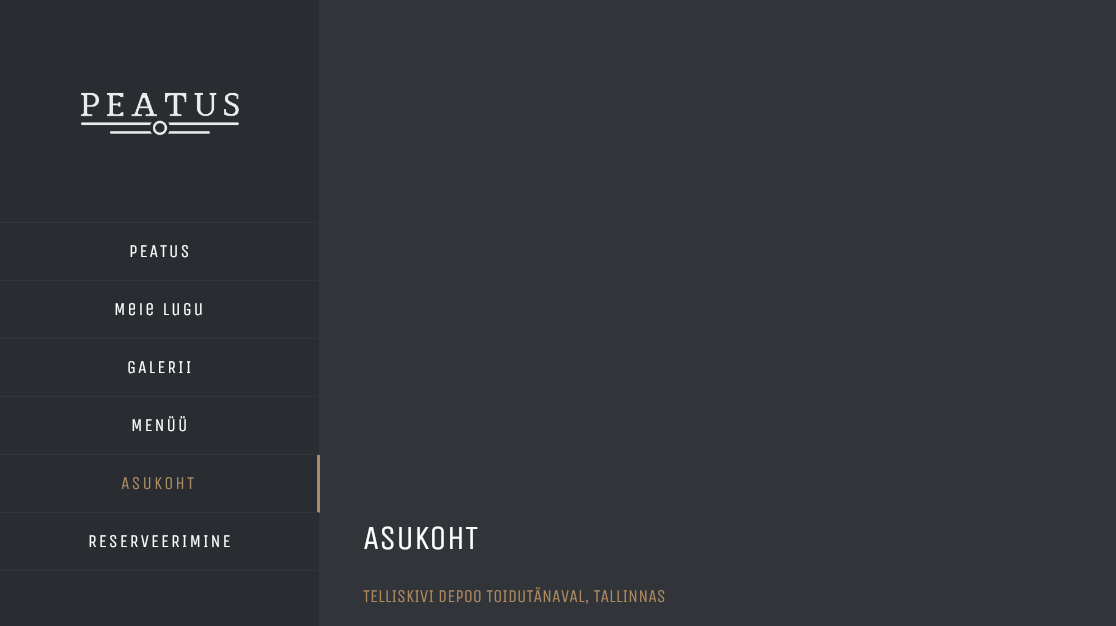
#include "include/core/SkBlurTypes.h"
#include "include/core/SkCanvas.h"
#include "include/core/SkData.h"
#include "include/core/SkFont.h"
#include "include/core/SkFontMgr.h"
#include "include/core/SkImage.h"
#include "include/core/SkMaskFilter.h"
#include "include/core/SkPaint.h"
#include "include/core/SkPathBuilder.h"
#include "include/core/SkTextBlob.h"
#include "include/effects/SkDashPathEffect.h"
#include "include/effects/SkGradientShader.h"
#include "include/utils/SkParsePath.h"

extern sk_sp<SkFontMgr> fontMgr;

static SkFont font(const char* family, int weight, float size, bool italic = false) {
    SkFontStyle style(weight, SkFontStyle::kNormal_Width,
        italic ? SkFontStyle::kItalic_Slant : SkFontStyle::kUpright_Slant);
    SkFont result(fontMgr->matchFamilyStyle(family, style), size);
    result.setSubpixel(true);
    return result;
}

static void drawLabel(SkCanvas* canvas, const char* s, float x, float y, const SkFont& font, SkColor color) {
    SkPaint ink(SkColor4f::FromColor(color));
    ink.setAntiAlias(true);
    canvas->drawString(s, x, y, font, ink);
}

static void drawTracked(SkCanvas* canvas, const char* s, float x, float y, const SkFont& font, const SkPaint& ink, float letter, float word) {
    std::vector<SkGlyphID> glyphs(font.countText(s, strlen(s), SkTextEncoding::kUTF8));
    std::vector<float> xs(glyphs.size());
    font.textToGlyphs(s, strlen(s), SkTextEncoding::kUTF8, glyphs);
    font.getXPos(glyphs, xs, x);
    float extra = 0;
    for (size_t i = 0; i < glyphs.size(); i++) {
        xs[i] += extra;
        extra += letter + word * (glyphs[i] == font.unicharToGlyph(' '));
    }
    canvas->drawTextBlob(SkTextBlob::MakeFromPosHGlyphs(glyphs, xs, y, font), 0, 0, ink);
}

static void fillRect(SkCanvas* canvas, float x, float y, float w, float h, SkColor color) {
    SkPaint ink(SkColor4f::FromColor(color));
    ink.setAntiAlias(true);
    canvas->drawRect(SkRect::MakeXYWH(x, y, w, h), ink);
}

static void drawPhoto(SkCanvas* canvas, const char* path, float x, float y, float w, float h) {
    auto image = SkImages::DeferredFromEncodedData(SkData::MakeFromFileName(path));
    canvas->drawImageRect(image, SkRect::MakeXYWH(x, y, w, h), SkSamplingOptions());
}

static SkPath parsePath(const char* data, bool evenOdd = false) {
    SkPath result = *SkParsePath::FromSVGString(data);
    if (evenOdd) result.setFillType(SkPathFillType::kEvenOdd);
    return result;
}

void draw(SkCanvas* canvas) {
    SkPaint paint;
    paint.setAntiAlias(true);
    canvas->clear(0xFF313539);
    fillRect(canvas, 0, 0, 319, 626, 0xFF292C30);
    drawPhoto(canvas, "assets/img1.png", 80, 92, 159, 44);
    fillRect(canvas, 0, 222, 320, 1, 0xFF313539);
    fillRect(canvas, 0, 280, 320, 1, 0xFF313539);
    SkFont font1 = font("Unica One", 400, 18);
    paint.setColor(0xFFFFFFFF);
    drawTracked(canvas, "PEATUS", 129, 257, font1, paint, 2, 0);
    fillRect(canvas, 0, 338, 320, 1, 0xFF313539);
    drawTracked(canvas, "Meie lugu", 114, 315, font1, paint, 2, 0);
    fillRect(canvas, 0, 396, 320, 1, 0xFF313539);
    drawTracked(canvas, "GALERII", 127, 373, font1, paint, 2, 0);
    fillRect(canvas, 0, 454, 320, 1, 0xFF313539);
    drawTracked(canvas, "MENÜÜ", 131, 431, font1, paint, 2, 0);
    paint.setColor(0xFFAB8B65);
    canvas->drawPath(parsePath("M320 455V513L317 512V455Z"), paint);
    paint.setColor(0xFF313539);
    canvas->drawPath(parsePath("M320 513H0V512H317Z"), paint);
    paint.setColor(0xFFAB8B65);
    drawTracked(canvas, "ASUKOHT", 121, 489, font1, paint, 2, 0);
    fillRect(canvas, 0, 570, 320, 1, 0xFF313539);
    paint.setColor(0xFFFFFFFF);
    drawTracked(canvas, "RESERVEERIMINE", 88, 547, font1, paint, 2, 0);
    SkFont font2 = font("Unica One", 400, 34);
    drawLabel(canvas, "ASUKOHT", 363, 549, font2, 0xFFFFFFFF);
    drawLabel(canvas, "TELLISKIVI DEPOO TOIDUTÄNAVAL, TALLINNAS", 363, 602, font1, 0xFFAE895D);
}
